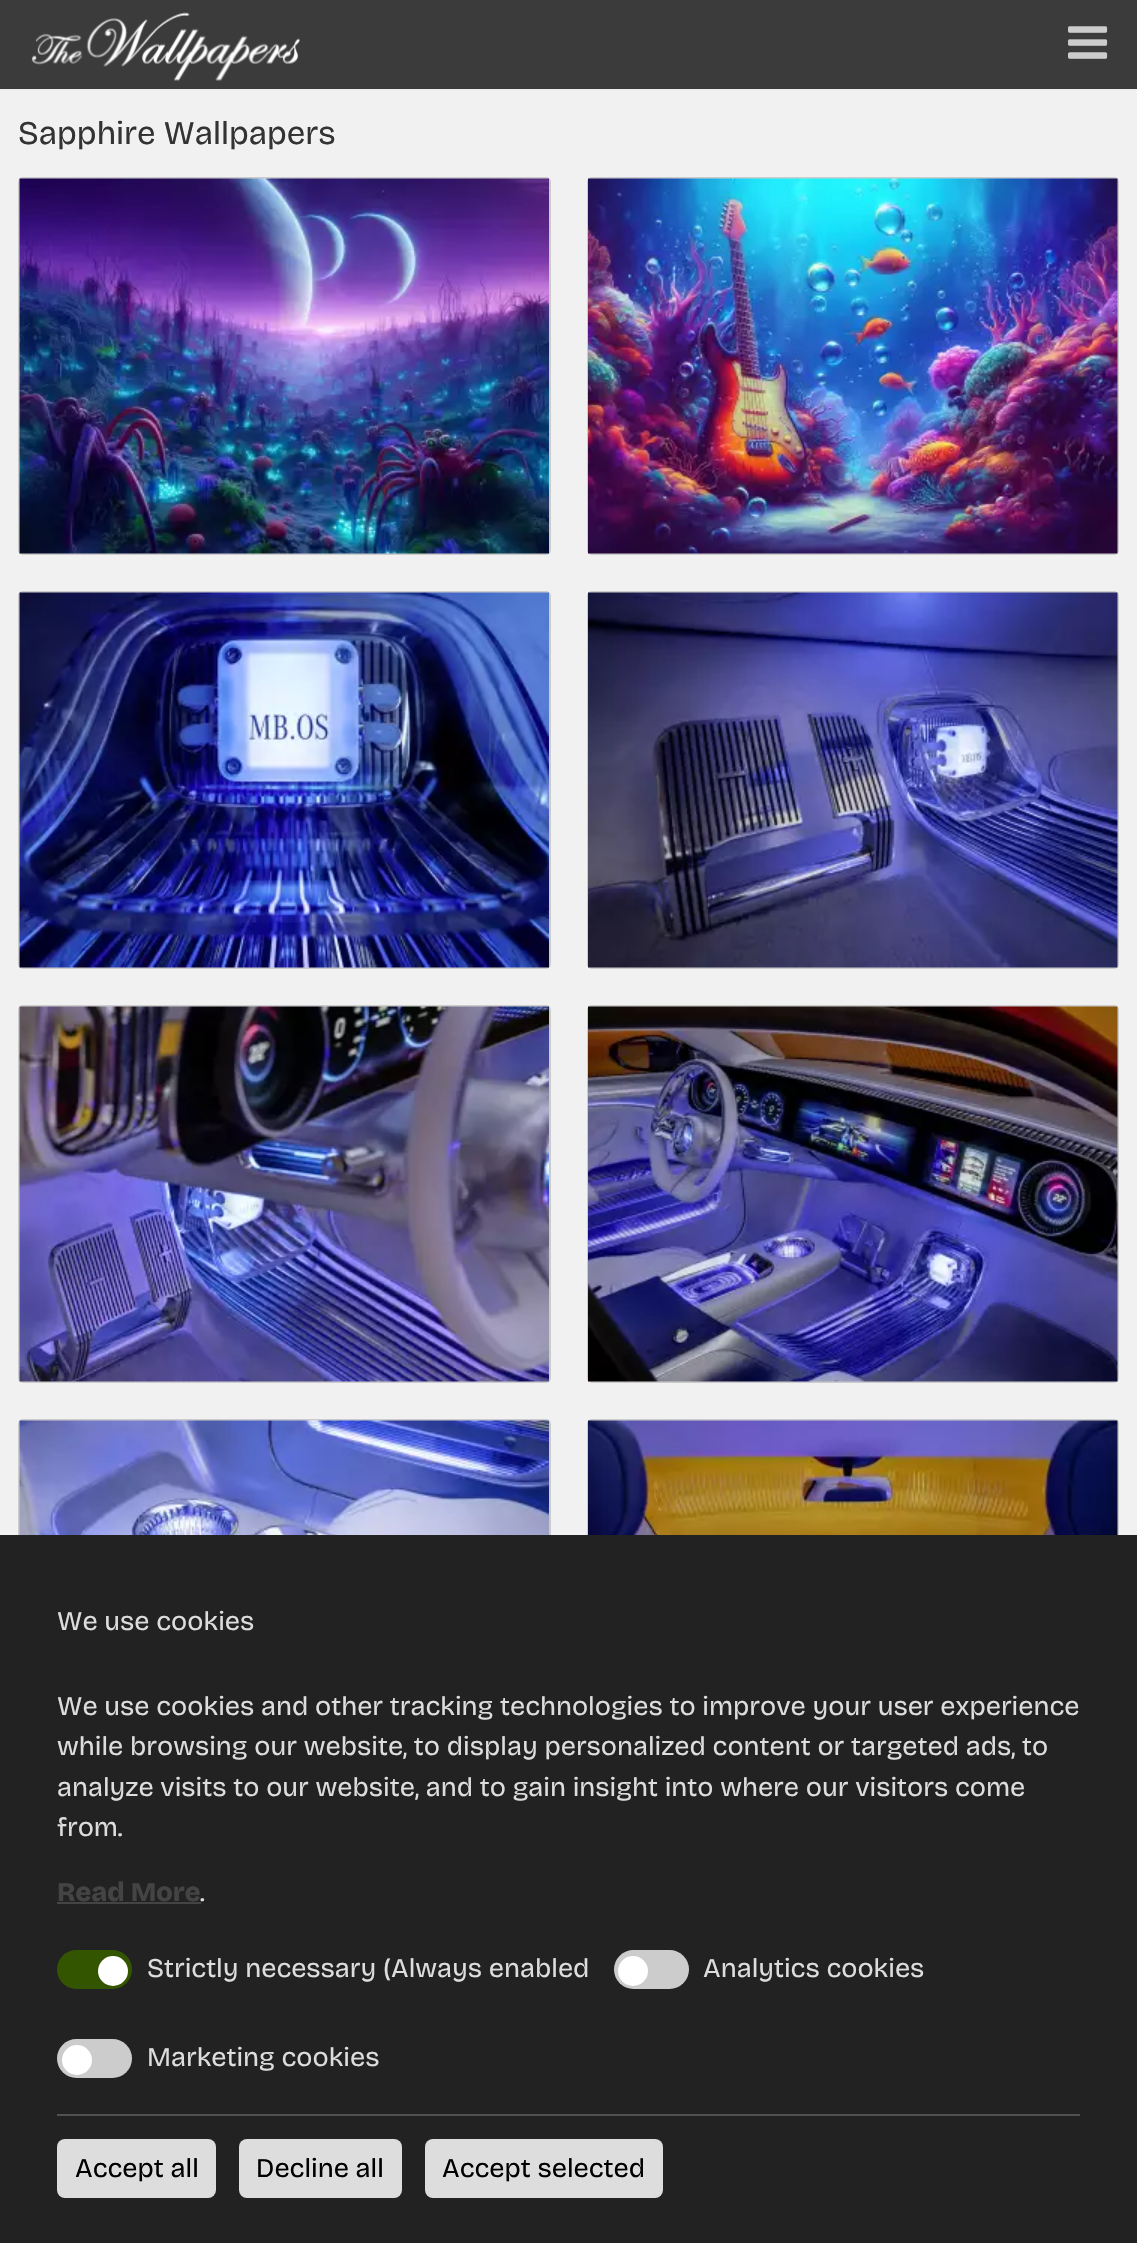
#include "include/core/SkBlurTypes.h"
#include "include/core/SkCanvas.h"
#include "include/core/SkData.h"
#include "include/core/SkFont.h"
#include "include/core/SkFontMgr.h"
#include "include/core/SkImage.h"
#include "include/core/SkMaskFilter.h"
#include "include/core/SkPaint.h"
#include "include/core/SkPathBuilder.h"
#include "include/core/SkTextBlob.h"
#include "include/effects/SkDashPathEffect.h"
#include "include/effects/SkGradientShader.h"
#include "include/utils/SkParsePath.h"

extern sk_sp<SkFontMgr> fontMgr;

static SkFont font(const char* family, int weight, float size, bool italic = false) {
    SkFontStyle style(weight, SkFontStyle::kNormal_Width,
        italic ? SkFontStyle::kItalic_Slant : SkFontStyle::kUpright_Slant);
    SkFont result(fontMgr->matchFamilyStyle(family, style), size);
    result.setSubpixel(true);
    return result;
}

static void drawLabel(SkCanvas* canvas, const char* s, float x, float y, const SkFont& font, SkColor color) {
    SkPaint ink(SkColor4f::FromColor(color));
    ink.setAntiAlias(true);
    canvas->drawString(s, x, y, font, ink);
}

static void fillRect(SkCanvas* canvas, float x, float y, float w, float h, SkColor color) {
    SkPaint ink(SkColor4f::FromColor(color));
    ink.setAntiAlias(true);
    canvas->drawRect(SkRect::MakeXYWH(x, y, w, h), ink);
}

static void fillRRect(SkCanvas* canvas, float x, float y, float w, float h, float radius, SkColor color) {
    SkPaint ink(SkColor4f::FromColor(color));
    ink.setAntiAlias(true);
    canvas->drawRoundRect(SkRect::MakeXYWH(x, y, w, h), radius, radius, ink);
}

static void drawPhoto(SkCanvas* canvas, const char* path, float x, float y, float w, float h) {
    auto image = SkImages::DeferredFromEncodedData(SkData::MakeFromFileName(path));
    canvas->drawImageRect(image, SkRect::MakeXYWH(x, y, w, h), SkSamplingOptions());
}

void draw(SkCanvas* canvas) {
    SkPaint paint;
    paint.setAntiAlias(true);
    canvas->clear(0xFFF1F1F1);
    fillRect(canvas, 0, 0, 1137, 89, 0xFF3B3B3B);
    fillRect(canvas, 0, 89, 1137, 2, 0xFFEEEEEE);
    drawPhoto(canvas, "assets/img1.png", 31, 12, 269, 69);
    drawPhoto(canvas, "assets/img2.png", 1068, 26, 40, 33);
    SkFont font1 = font("Bricolage Grotesque", 400, 33);
    drawLabel(canvas, "Sapphire Wallpapers", 18, 144, font1, 0xFF333333);
    paint.setStroke(true);
    paint.setStrokeWidth(2);
    paint.setColor(0xFFCCCCCC);
    canvas->drawRoundRect(SkRect::MakeXYWH(19, 178, 531, 376), 4, 4, paint);
    drawPhoto(canvas, "assets/img3.png", 19, 178, 530, 376);
    canvas->drawRoundRect(SkRect::MakeXYWH(588, 178, 530, 376), 4, 4, paint);
    drawPhoto(canvas, "assets/img4.png", 588, 178, 530, 376);
    canvas->drawRoundRect(SkRect::MakeXYWH(19, 592, 531, 376), 4, 4, paint);
    drawPhoto(canvas, "assets/img5.png", 19, 592, 530, 376);
    canvas->drawRoundRect(SkRect::MakeXYWH(588, 592, 530, 376), 4, 4, paint);
    drawPhoto(canvas, "assets/img6.png", 588, 592, 530, 376);
    canvas->drawRoundRect(SkRect::MakeXYWH(19, 1006, 531, 376), 4, 4, paint);
    drawPhoto(canvas, "assets/img7.png", 19, 1006, 530, 376);
    canvas->drawRoundRect(SkRect::MakeXYWH(588, 1006, 530, 376), 4, 4, paint);
    drawPhoto(canvas, "assets/img8.png", 588, 1006, 530, 376);
    canvas->drawRoundRect(SkRect::MakeXYWH(19, 1420, 531, 376), 4, 4, paint);
    drawPhoto(canvas, "assets/img9.png", 19, 1420, 530, 115);
    canvas->drawRoundRect(SkRect::MakeXYWH(588, 1420, 530, 376), 4, 4, paint);
    drawPhoto(canvas, "assets/img10.png", 588, 1420, 530, 115);
    fillRect(canvas, 0, 1535, 1137, 708, 0xFF222222);
    SkFont font2 = font("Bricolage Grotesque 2", 400, 27);
    drawLabel(canvas, "We use cookies", 57, 1630, font2, 0xFFDDDDDD);
    drawLabel(canvas, "We use cookies and other tracking technologies to improve your user experience", 57, 1715, font2, 0xFFDDDDDD);
    drawLabel(canvas, "while browsing our website, to display personalized content or targeted ads, to", 57, 1755, font2, 0xFFDDDDDD);
    drawLabel(canvas, "analyze visits to our website, and to gain insight into where our visitors come", 57, 1796, font2, 0xFFDDDDDD);
    drawLabel(canvas, "from.", 57, 1836, font2, 0xFFDDDDDD);
    SkFont font3 = font("Bricolage Grotesque", 800, 27);
    drawLabel(canvas, "Read More", 57, 1901, font3, 0xFF444444);
    fillRect(canvas, 57, 1902, 144, 2, 0xFF444444);
    drawLabel(canvas, ".", 200, 1901, font2, 0xFFDDDDDD);
    fillRRect(canvas, 57, 1950, 75, 39, 19.5f, 0xFF335500);
    paint.setStroke(false);
    paint.setColor(0xFFFFFFFF);
    canvas->drawCircle(113, 1971, 15, paint);
    drawLabel(canvas, "Strictly necessary (Always enabled", 147, 1977, font2, 0xFFDDDDDD);
    fillRRect(canvas, 614, 1950, 75, 39, 19.5f, 0xFFCCCCCC);
    canvas->drawCircle(633, 1971, 15, paint);
    drawLabel(canvas, "Analytics cookies", 703, 1977, font2, 0xFFDDDDDD);
    fillRRect(canvas, 57, 2039, 75, 39, 19.5f, 0xFFCCCCCC);
    canvas->drawCircle(77, 2060, 15, paint);
    drawLabel(canvas, "Marketing cookies", 147, 2066, font2, 0xFFDDDDDD);
    fillRect(canvas, 57, 2114, 1023, 2, 0xFF515151);
    fillRRect(canvas, 57, 2139, 159, 59, 8, 0xFFDDDDDD);
    drawLabel(canvas, "Accept all", 75, 2177, font2, 0xFF000000);
    fillRRect(canvas, 239, 2139, 163, 59, 8, 0xFFDDDDDD);
    drawLabel(canvas, "Decline all", 256, 2177, font2, 0xFF000000);
    fillRRect(canvas, 425, 2139, 238, 59, 8, 0xFFDDDDDD);
    drawLabel(canvas, "Accept selected", 442, 2177, font2, 0xFF000000);
}
